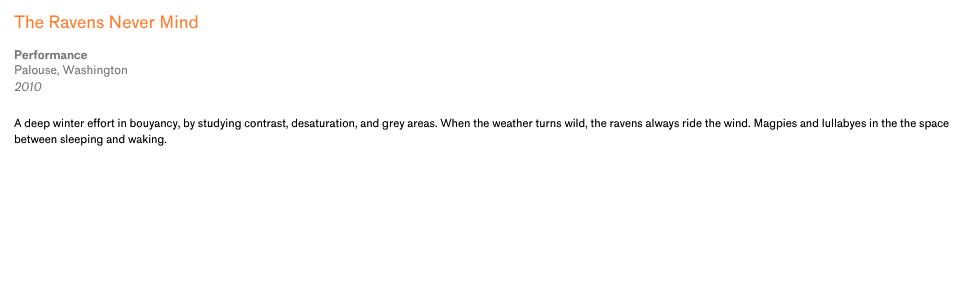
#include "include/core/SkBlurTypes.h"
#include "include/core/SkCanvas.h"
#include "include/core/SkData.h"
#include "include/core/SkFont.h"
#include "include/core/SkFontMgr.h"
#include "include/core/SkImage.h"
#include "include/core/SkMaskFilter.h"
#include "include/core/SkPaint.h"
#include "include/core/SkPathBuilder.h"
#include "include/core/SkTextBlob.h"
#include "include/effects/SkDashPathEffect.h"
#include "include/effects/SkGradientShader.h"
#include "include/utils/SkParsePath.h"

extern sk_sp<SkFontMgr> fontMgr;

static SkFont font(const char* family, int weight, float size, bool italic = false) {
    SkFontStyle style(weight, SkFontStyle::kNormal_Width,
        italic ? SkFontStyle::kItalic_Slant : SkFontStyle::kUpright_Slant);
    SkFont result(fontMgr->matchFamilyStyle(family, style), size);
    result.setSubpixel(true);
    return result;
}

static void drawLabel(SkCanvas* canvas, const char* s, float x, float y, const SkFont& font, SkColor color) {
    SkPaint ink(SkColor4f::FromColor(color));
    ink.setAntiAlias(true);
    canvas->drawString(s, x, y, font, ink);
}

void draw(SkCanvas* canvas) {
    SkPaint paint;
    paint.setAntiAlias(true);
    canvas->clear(0xFFFFFFFF);
    SkFont font1 = font("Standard", 400, 16.6f);
    drawLabel(canvas, "The Ravens Never Mind", 14, 28, font1, 0xFFFF7C2D);
    SkFont font2 = font("Standard", 700, 11.5f);
    drawLabel(canvas, "Performance", 14, 59, font2, 0xFF757575);
    SkFont font3 = font("Standard", 400, 11.5f);
    drawLabel(canvas, "Palouse, Washington", 14, 74, font3, 0xFF757575);
    SkFont font4 = font("Standard", 400, 11.5f, true);
    drawLabel(canvas, "2010", 14, 91, font4, 0xFF757575);
    SkFont font5 = font("Standard", 400, 10.88f);
    drawLabel(canvas, "A deep winter effort in bouyancy, by studying contrast, desaturation, and grey areas. When the weather turns wild, the ravens always ride the wind. Magpies and lullabyes in the the space", 14, 127, font5, 0xFF000000);
    drawLabel(canvas, "between sleeping and waking.", 14, 143, font5, 0xFF000000);
}
